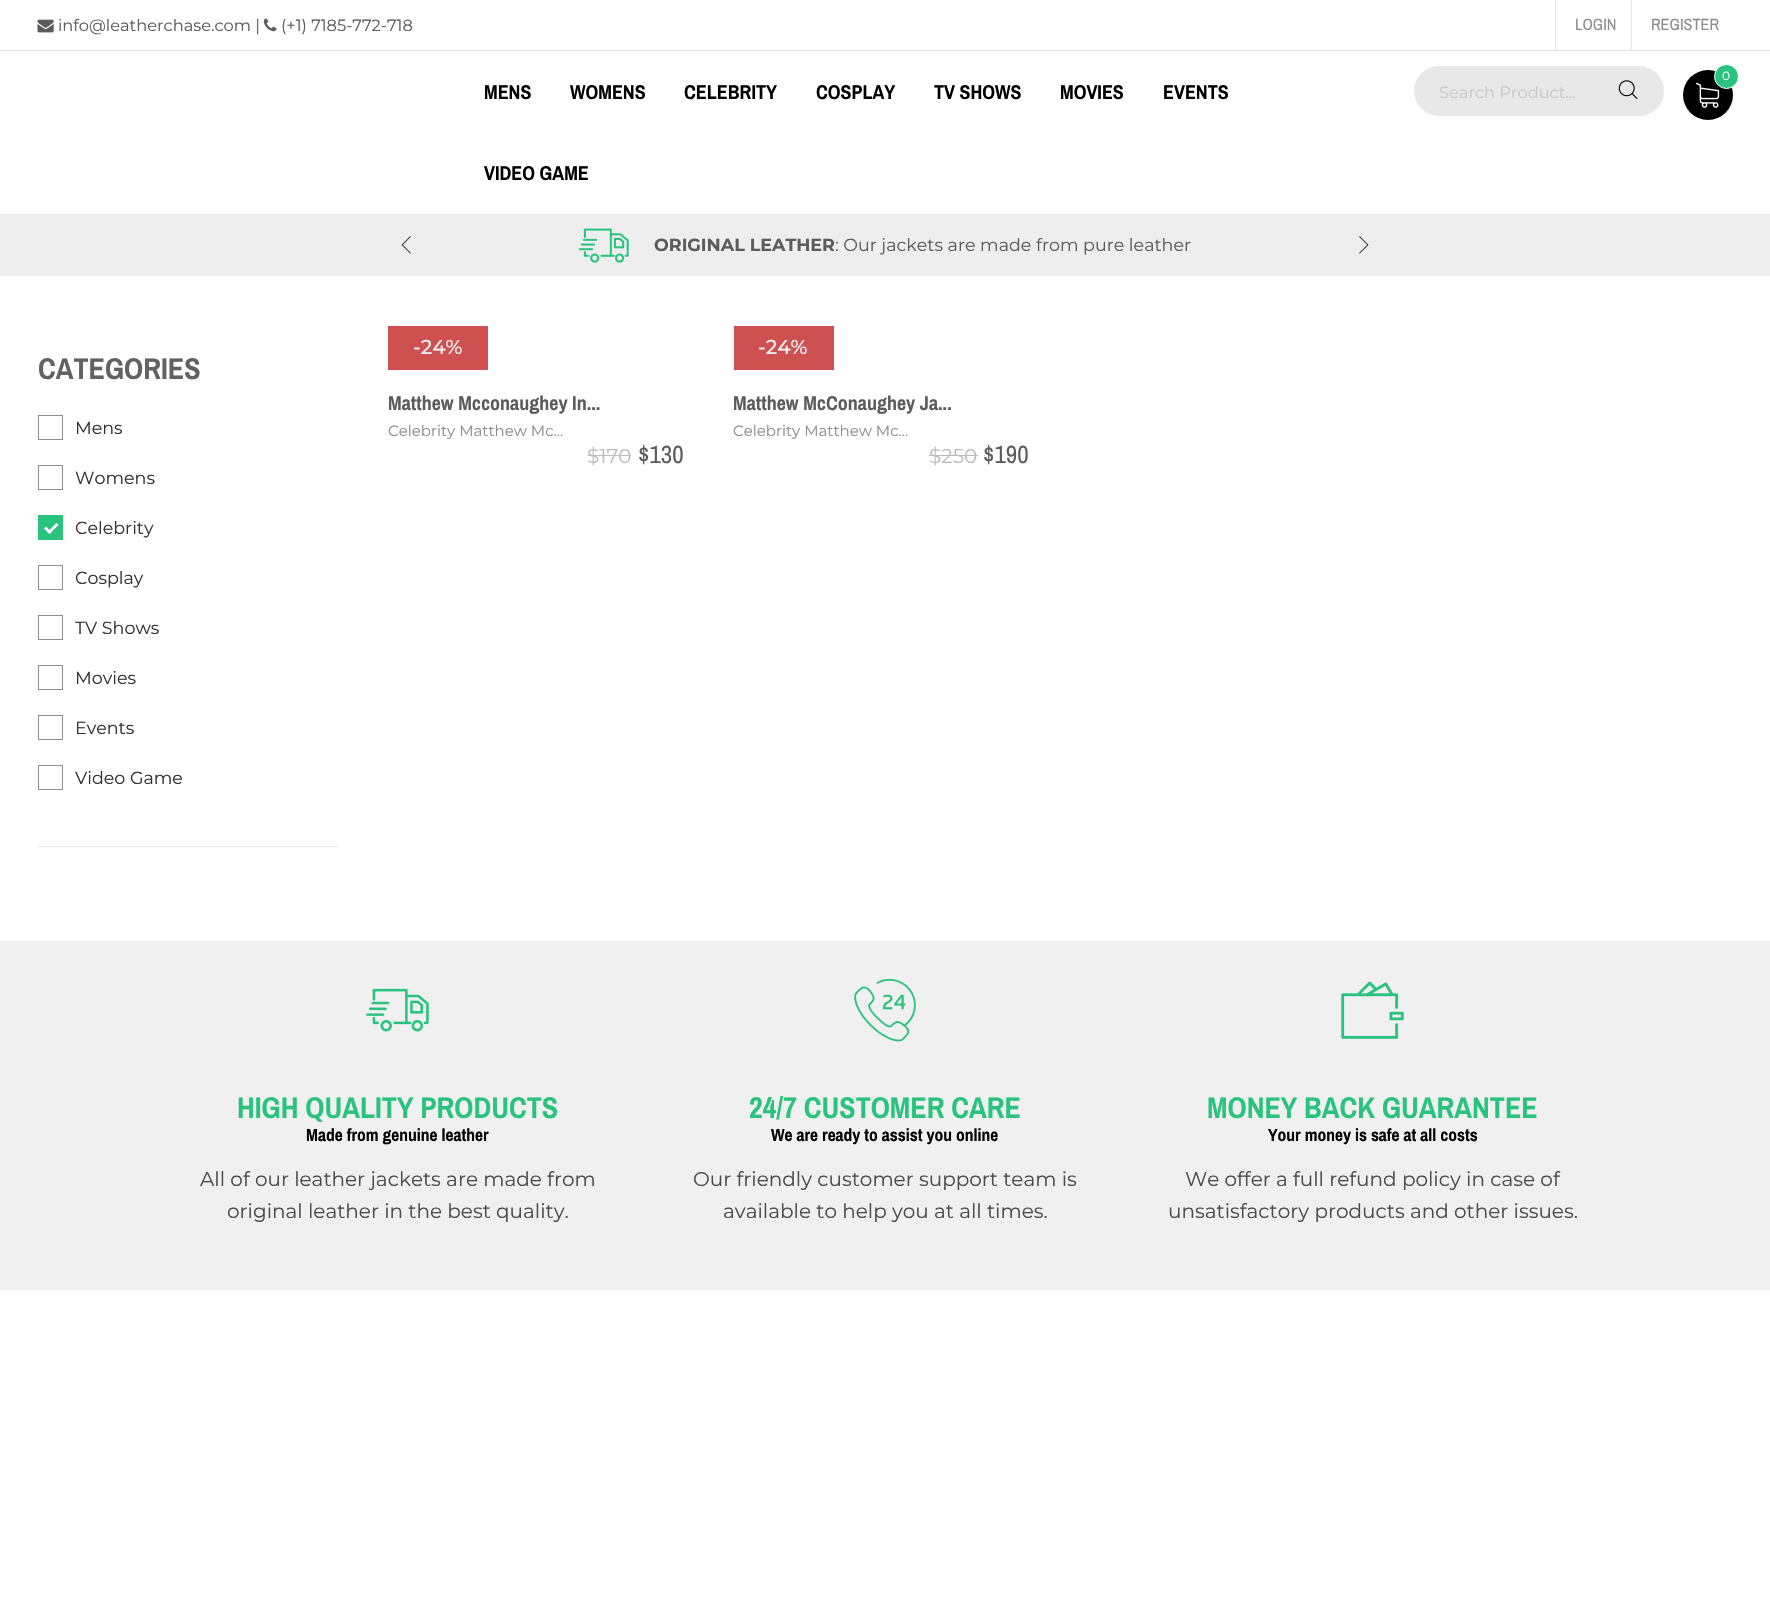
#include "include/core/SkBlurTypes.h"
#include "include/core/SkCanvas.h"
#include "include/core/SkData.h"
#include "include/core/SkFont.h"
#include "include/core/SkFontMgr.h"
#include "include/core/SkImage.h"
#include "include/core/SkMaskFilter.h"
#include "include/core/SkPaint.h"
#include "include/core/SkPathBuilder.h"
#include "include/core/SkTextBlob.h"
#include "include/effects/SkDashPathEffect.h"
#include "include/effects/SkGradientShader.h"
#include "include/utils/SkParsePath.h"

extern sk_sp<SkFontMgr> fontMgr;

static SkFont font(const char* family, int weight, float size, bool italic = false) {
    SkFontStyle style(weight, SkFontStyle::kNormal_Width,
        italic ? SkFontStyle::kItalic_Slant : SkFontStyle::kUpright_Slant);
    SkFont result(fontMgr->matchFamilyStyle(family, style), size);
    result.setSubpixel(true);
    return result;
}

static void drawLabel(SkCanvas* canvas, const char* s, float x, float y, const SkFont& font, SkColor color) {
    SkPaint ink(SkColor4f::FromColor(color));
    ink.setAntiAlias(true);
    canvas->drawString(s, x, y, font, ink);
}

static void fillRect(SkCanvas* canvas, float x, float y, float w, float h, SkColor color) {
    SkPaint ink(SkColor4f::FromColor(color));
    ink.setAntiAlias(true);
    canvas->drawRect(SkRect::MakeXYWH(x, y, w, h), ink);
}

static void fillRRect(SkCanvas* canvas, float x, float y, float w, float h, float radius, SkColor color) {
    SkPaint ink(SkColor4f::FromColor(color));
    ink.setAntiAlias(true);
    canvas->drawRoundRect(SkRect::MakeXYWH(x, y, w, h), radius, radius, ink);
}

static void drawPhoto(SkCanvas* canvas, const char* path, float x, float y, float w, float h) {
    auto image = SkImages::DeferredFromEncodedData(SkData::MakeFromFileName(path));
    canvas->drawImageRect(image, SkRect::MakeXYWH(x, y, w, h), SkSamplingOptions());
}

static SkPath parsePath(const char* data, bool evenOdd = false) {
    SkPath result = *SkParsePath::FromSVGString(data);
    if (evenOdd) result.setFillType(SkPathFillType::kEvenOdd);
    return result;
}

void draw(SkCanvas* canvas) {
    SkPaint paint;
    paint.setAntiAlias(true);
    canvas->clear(0xFFFFFFFF);
    fillRect(canvas, 0, 50, 1770, 1, 0xFFE5E5E5);
    drawPhoto(canvas, "assets/img1.png", 37, 19, 17, 14);
    SkFont font1 = font("Montserrat", 400, 16.25f);
    drawLabel(canvas, "info@leatherchase.com |", 58, 31, font1, 0xFF5B5B5B);
    drawPhoto(canvas, "assets/img2.png", 263, 18, 14, 14);
    drawLabel(canvas, "(+1) 7185-772-718", 281, 31, font1, 0xFF5B5B5B);
    fillRect(canvas, 1555, 0, 1, 50, 0xFFE5E5E5);
    SkFont font2 = font("Archivo Narrow", 400, 16.25f);
    drawLabel(canvas, "LOGIN", 1575, 30, font2, 0xFF8D8D8D);
    fillRect(canvas, 1631, 0, 1, 50, 0xFFE5E5E5);
    drawLabel(canvas, "REGISTER", 1651, 30, font2, 0xFF8D8D8D);
    SkFont font3 = font("Archivo Narrow", 700, 20);
    drawLabel(canvas, "MENS", 484, 99, font3, 0xFF000000);
    drawLabel(canvas, "WOMENS", 570, 99, font3, 0xFF000000);
    drawLabel(canvas, "CELEBRITY", 684, 99, font3, 0xFF000000);
    drawLabel(canvas, "COSPLAY", 816, 99, font3, 0xFF000000);
    drawLabel(canvas, "TV SHOWS", 934, 99, font3, 0xFF000000);
    drawLabel(canvas, "MOVIES", 1060, 99, font3, 0xFF000000);
    drawLabel(canvas, "EVENTS", 1163, 99, font3, 0xFF000000);
    drawLabel(canvas, "VIDEO GAME", 484, 180, font3, 0xFF000000);
    paint.setColor(0xFF000000);
    canvas->drawCircle(1708, 95, 25, paint);
    paint.setColor(0xFF2AC37D);
    canvas->drawCircle(1726.5f, 76.5f, 12, paint);
    paint.setStroke(true);
    paint.setStrokeWidth(1);
    paint.setColor(0xFFFFFFFF);
    canvas->drawCircle(1726.5f, 76.5f, 12, paint);
    SkFont font4 = font("Montserrat", 400, 12);
    drawLabel(canvas, "0", 1722, 80, font4, 0xFFFFFFFF);
    drawPhoto(canvas, "assets/img3.png", 1695, 82, 25, 26);
    fillRRect(canvas, 1414, 66, 250, 50, 25, 0xFFE8E8E8);
    drawLabel(canvas, "Search Product…", 1439, 98, font1, 0xFFC8C8C8);
    drawPhoto(canvas, "assets/img4.png", 1618, 80, 20, 19);
    fillRect(canvas, 0, 214, 1770, 62, 0xFFEEEEEE);
    drawPhoto(canvas, "assets/img5.png", 401, 236, 10, 18);
    drawPhoto(canvas, "assets/img6.png", 1359, 236, 10, 18);
    drawPhoto(canvas, "assets/img7.png", 578, 228, 51, 35);
    SkFont font5 = font("Montserrat", 700, 17.5f);
    drawLabel(canvas, "ORIGINAL LEATHER", 654, 251, font5, 0xFF5B5B5B);
    SkFont font6 = font("Montserrat", 400, 17.5f);
    drawLabel(canvas, ": Our jackets are made from pure leather", 835, 251, font6, 0xFF5B5B5B);
    fillRect(canvas, 38, 846, 300, 1, 0xFFE5E5E5);
    SkFont font7 = font("Archivo Narrow", 700, 30);
    drawLabel(canvas, "CATEGORIES", 38, 379, font7, 0xFF626262);
    paint.setColor(0xFF8D8D8D);
    canvas->drawRect(SkRect::MakeXYWH(38.5f, 415.5f, 24, 24), paint);
    drawLabel(canvas, "Mens", 75, 434, font6, 0xFF313131);
    canvas->drawRect(SkRect::MakeXYWH(38.5f, 465.5f, 24, 24), paint);
    drawLabel(canvas, "Womens", 75, 484, font6, 0xFF313131);
    fillRect(canvas, 38, 515, 25, 25, 0xFF2AC37D);
    drawLabel(canvas, "Celebrity", 75, 534, font6, 0xFF313131);
    paint.setStroke(false);
    paint.setColor(0xFFFFFFFF);
    canvas->drawPath(parsePath("M56.5 523L58.5 525L49.5 534L47.5 532Z"), paint);
    canvas->drawPath(parsePath("M46 526.5L51.5 532L49.5 534L44 528.5Z"), paint);
    paint.setStroke(true);
    paint.setColor(0xFF8D8D8D);
    canvas->drawRect(SkRect::MakeXYWH(38.5f, 565.5f, 24, 24), paint);
    drawLabel(canvas, "Cosplay", 75, 584, font6, 0xFF313131);
    canvas->drawRect(SkRect::MakeXYWH(38.5f, 615.5f, 24, 24), paint);
    drawLabel(canvas, "TV Shows", 75, 634, font6, 0xFF313131);
    canvas->drawRect(SkRect::MakeXYWH(38.5f, 665.5f, 24, 24), paint);
    drawLabel(canvas, "Movies", 75, 684, font6, 0xFF313131);
    canvas->drawRect(SkRect::MakeXYWH(38.5f, 715.5f, 24, 24), paint);
    drawLabel(canvas, "Events", 75, 734, font6, 0xFF313131);
    canvas->drawRect(SkRect::MakeXYWH(38.5f, 765.5f, 24, 24), paint);
    drawLabel(canvas, "Video Game", 75, 784, font6, 0xFF313131);
    fillRect(canvas, 388, 326, 100, 44, 0xFFCF5050);
    SkFont font8 = font("Montserrat", 500, 20);
    drawLabel(canvas, "-24%", 413, 354, font8, 0xFFEFEFEF);
    drawLabel(canvas, "Matthew Mcconaughey In...", 388, 410, font3, 0xFF5B5B5B);
    SkFont font9 = font("Montserrat", 400, 15);
    drawLabel(canvas, "Celebrity Matthew Mc...", 388, 436, font9, 0xFF8D8D8D);
    SkFont font10 = font("Montserrat", 400, 20);
    drawLabel(canvas, "$170", 587, 463, font10, 0xFFBCBCBC);
    fillRect(canvas, 588, 455, 43, 1, 0xFFBCBCBC);
    SkFont font11 = font("Archivo Narrow", 400, 25);
    drawLabel(canvas, "$130", 638, 463, font11, 0xFF5B5B5B);
    fillRect(canvas, 734, 326, 100, 44, 0xFFCF5050);
    drawLabel(canvas, "-24%", 758, 354, font8, 0xFFEFEFEF);
    drawLabel(canvas, "Matthew McConaughey Ja...", 733, 410, font3, 0xFF5B5B5B);
    drawLabel(canvas, "Celebrity Matthew Mc...", 733, 436, font9, 0xFF8D8D8D);
    drawLabel(canvas, "$250", 929, 463, font10, 0xFFBCBCBC);
    fillRect(canvas, 929, 455, 49, 1, 0xFFBCBCBC);
    drawLabel(canvas, "$190", 983, 463, font11, 0xFF5B5B5B);
    fillRect(canvas, 0, 941, 1770, 349, 0xFFF0F0F0);
    drawPhoto(canvas, "assets/img8.png", 366, 988, 63, 44);
    drawLabel(canvas, "HIGH QUALITY PRODUCTS", 237, 1118, font7, 0xFF2AC37D);
    SkFont font12 = font("Archivo Narrow", 700, 17.5f);
    drawLabel(canvas, "Made from genuine leather", 306, 1141, font12, 0xFF000000);
    drawLabel(canvas, "All of our leather jackets are made from", 200, 1186, font10, 0xFF4A4A4A);
    drawLabel(canvas, "original leather in the best quality.", 227, 1218, font10, 0xFF4A4A4A);
    drawPhoto(canvas, "assets/img9.png", 854, 978, 62, 64);
    drawLabel(canvas, "24/7 CUSTOMER CARE", 749, 1118, font7, 0xFF2AC37D);
    drawLabel(canvas, "We are ready to assist you online", 771, 1141, font12, 0xFF000000);
    drawLabel(canvas, "Our friendly customer support team is", 693, 1186, font10, 0xFF4A4A4A);
    drawLabel(canvas, "available to help you at all times.", 723, 1218, font10, 0xFF4A4A4A);
    drawPhoto(canvas, "assets/img10.png", 1341, 981, 63, 58);
    drawLabel(canvas, "MONEY BACK GUARANTEE", 1207, 1118, font7, 0xFF2AC37D);
    drawLabel(canvas, "Your money is safe at all costs", 1268, 1141, font12, 0xFF000000);
    drawLabel(canvas, "We offer a full refund policy in case of", 1185, 1186, font10, 0xFF4A4A4A);
    drawLabel(canvas, "unsatisfactory products and other issues.", 1168, 1218, font10, 0xFF4A4A4A);
}
